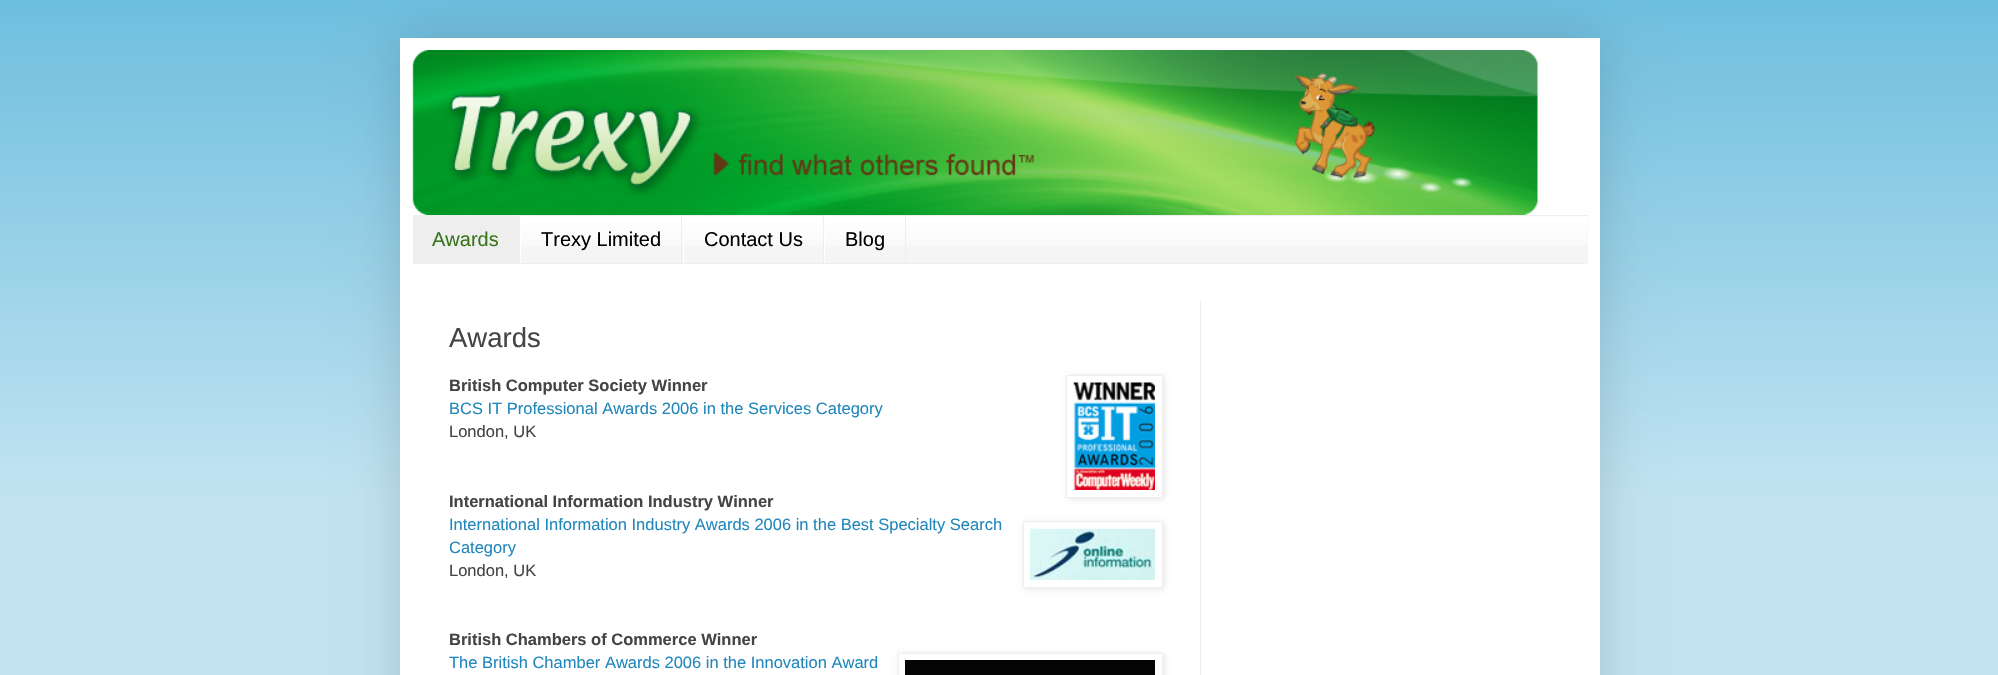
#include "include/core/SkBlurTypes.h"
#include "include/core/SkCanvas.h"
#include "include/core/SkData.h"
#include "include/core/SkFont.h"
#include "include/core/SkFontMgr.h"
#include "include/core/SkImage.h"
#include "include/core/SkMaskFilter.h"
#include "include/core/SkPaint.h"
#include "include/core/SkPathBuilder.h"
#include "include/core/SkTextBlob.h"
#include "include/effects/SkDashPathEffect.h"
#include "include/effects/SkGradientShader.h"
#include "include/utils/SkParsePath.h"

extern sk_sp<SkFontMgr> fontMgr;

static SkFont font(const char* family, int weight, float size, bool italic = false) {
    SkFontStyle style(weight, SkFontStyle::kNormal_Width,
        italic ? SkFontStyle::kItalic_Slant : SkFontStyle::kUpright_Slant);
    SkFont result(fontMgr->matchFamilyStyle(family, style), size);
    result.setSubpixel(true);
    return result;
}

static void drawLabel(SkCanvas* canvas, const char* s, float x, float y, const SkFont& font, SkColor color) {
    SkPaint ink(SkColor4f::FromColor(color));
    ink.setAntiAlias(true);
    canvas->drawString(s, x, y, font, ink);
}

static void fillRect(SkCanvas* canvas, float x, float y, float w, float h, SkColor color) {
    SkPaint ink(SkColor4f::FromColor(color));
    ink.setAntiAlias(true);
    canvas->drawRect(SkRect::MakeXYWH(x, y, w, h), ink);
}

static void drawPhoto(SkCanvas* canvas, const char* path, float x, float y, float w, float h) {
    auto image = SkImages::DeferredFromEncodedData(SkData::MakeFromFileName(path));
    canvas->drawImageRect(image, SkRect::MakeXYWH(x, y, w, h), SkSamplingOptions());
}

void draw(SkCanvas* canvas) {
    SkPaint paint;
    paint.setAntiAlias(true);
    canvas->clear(0xFFC2E4F2);
    fillRect(canvas, 0, 0, 1998, 500, 0xFF66BBDD);
    drawPhoto(canvas, "assets/img1.png", 0, 0, 1998, 500);
    paint.setColor(0x26000000);
    paint.setMaskFilter(SkMaskFilter::MakeBlur(kNormal_SkBlurStyle, 25));
    canvas->drawRect(SkRect::MakeXYWH(400, 38, 1200, 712), paint);
    paint.setMaskFilter(nullptr);
    fillRect(canvas, 400, 38, 1200, 637, 0xFFFFFFFF);
    drawPhoto(canvas, "assets/img2.png", 412, 50, 1126, 165);
    fillRect(canvas, 521, 216, 1067, 47, 0xFFF5F5F5);
    drawPhoto(canvas, "assets/img3.png", 521, 216, 1067, 30);
    fillRect(canvas, 413, 215, 1175, 1, 0xFFEEEEEE);
    fillRect(canvas, 413, 263, 1175, 1, 0xFFEEEEEE);
    fillRect(canvas, 413, 216, 107, 47, 0xFFEEEEEE);
    SkFont font1 = font("Liberation Sans", 400, 20);
    drawLabel(canvas, "Awards", 432, 246, font1, 0xFF38761D);
    fillRect(canvas, 681, 216, 1, 47, 0xFFEEEEEE);
    drawLabel(canvas, "Trexy Limited", 541, 246, font1, 0xFF000000);
    fillRect(canvas, 823, 216, 1, 47, 0xFFEEEEEE);
    fillRect(canvas, 683, 216, 1, 47, 0xFFFFFFFF);
    drawLabel(canvas, "Contact Us", 704, 246, font1, 0xFF000000);
    fillRect(canvas, 905, 216, 1, 47, 0xFFEEEEEE);
    fillRect(canvas, 824, 216, 1, 47, 0xFFFFFFFF);
    drawLabel(canvas, "Blog", 845, 246, font1, 0xFF000000);
    SkFont font2 = font("Liberation Sans", 400, 27.5f);
    drawLabel(canvas, "Awards", 449, 347, font2, 0xFF444444);
    SkFont font3 = font("Liberation Sans", 700, 16.5f);
    drawLabel(canvas, "British Computer Society Winner", 449, 391, font3, 0xFF444444);
    paint.setColor(0x1A000000);
    paint.setMaskFilter(SkMaskFilter::MakeBlur(kNormal_SkBlurStyle, 3));
    canvas->drawRect(SkRect::MakeXYWH(1068, 376, 96, 123), paint);
    paint.setMaskFilter(nullptr);
    paint.setColor(0xFFFFFFFF);
    canvas->drawRect(SkRect::MakeXYWH(1066.5f, 375.5f, 96, 122), paint);
    paint.setStroke(true);
    paint.setStrokeWidth(1);
    paint.setColor(0xFFEEEEEE);
    canvas->drawRect(SkRect::MakeXYWH(1066.5f, 375.5f, 96, 122), paint);
    drawPhoto(canvas, "assets/img4.png", 1073, 382, 82, 108);
    SkFont font4 = font("Liberation Sans", 400, 16.5f);
    drawLabel(canvas, "BCS IT Professional Awards 2006 in the Services Category", 449, 414, font4, 0xFF2187BB);
    drawLabel(canvas, "London, UK", 449, 437, font4, 0xFF444444);
    drawLabel(canvas, "International Information Industry Winner", 449, 507, font3, 0xFF444444);
    drawLabel(canvas, "International Information Industry Awards 2006 in the Best Specialty Search", 449, 530, font4, 0xFF2187BB);
    paint.setStroke(false);
    paint.setColor(0x1A000000);
    paint.setMaskFilter(SkMaskFilter::MakeBlur(kNormal_SkBlurStyle, 3));
    canvas->drawRect(SkRect::MakeXYWH(1024, 523, 140, 66), paint);
    paint.setMaskFilter(nullptr);
    paint.setColor(0xFFFFFFFF);
    canvas->drawRect(SkRect::MakeXYWH(1023.5f, 521.5f, 139, 66), paint);
    paint.setStroke(true);
    paint.setColor(0xFFEEEEEE);
    canvas->drawRect(SkRect::MakeXYWH(1023.5f, 521.5f, 139, 66), paint);
    drawPhoto(canvas, "assets/img5.png", 1030, 528, 125, 52);
    drawLabel(canvas, "Category", 449, 553, font4, 0xFF2187BB);
    drawLabel(canvas, "London, UK", 449, 576, font4, 0xFF444444);
    drawLabel(canvas, "British Chambers of Commerce Winner", 449, 645, font3, 0xFF444444);
    drawLabel(canvas, "The British Chamber Awards 2006 in the Innovation Award", 449, 668, font4, 0xFF2187BB);
    paint.setStroke(false);
    paint.setColor(0x1A000000);
    paint.setMaskFilter(SkMaskFilter::MakeBlur(kNormal_SkBlurStyle, 3));
    canvas->drawRect(SkRect::MakeXYWH(899, 654, 265, 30), paint);
    paint.setMaskFilter(nullptr);
    paint.setColor(0xFFFFFFFF);
    canvas->drawRect(SkRect::MakeXYWH(898.5f, 653.5f, 264, 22), paint);
    paint.setStroke(true);
    paint.setColor(0xFFEEEEEE);
    canvas->drawRect(SkRect::MakeXYWH(898.5f, 653.5f, 264, 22), paint);
    fillRect(canvas, 905, 660, 250, 15, 0xFF050505);
    fillRect(canvas, 1200, 301, 1, 374, 0xFFEEEEEE);
}
